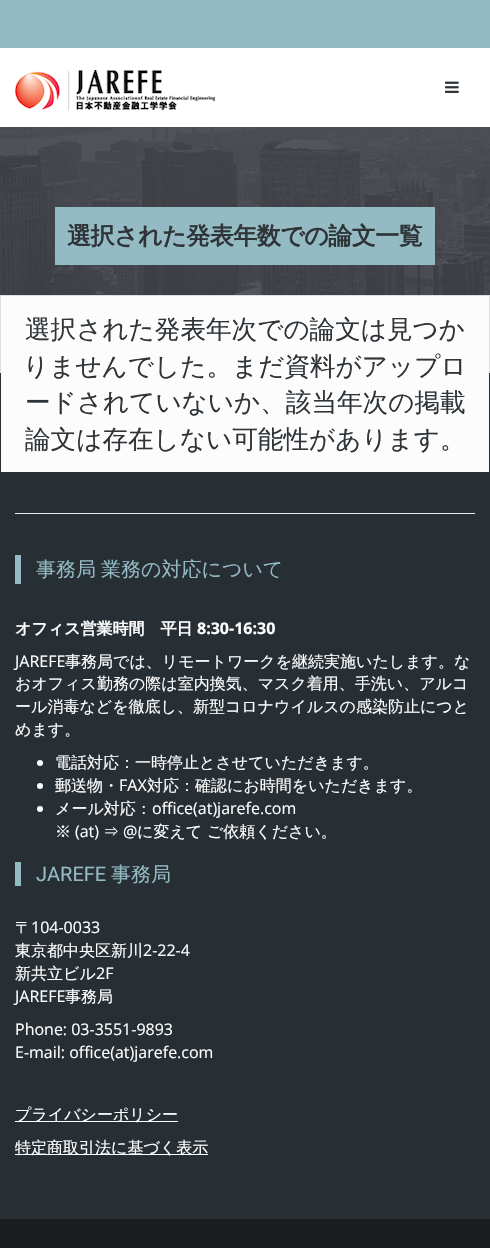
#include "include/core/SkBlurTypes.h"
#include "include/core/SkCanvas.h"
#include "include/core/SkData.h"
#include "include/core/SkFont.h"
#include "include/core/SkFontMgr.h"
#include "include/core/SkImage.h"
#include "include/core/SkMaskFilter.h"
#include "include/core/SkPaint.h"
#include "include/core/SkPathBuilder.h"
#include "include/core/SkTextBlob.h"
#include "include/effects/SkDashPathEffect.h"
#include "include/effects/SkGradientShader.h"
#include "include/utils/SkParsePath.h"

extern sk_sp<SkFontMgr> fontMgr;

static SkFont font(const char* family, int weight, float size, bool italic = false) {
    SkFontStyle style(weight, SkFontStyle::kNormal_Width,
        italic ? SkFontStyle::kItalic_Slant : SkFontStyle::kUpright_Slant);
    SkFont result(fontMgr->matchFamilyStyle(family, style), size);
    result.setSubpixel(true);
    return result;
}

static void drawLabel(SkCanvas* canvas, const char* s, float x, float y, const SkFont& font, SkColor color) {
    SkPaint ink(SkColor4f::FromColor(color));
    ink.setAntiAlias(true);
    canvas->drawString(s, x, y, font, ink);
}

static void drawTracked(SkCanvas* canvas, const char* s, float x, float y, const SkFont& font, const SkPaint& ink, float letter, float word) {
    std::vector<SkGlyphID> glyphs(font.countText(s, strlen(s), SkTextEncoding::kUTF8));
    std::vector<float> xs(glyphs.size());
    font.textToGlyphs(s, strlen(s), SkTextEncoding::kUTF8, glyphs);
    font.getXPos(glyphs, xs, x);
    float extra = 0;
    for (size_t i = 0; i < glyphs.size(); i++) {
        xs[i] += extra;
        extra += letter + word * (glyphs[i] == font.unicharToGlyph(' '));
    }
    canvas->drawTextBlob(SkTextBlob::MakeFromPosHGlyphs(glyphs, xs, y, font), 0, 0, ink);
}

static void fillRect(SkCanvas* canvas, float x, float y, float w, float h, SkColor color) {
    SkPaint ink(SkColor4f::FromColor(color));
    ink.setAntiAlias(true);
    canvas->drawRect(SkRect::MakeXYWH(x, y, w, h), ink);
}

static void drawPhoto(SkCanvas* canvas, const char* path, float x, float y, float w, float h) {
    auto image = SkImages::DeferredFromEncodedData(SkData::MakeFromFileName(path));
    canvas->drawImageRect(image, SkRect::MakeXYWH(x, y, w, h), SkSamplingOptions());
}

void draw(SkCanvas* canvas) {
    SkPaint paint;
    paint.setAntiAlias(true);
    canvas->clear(0xFFFFFFFF);
    fillRect(canvas, 0, 0, 490, 48, 0xFF94BAC3);
    drawPhoto(canvas, "assets/img1.png", 15, 70, 200, 41);
    drawPhoto(canvas, "assets/img2.png", 445, 81, 14, 12);
    drawPhoto(canvas, "assets/img3.png", 0, 127, 490, 168);
    fillRect(canvas, 55, 207, 380, 58, 0xFF94BAC3);
    SkFont font1 = font("WenQuanYi Zen Hei", 700, 24);
    paint.setColor(0xFF2F3438);
    drawTracked(canvas, "選択された発表年数での論文一覧", 67, 244, font1, paint, -0.5f, 0);
    paint.setStroke(true);
    paint.setStrokeWidth(1);
    paint.setColor(0xFFDEDEDE);
    canvas->drawRect(SkRect::MakeXYWH(0.5f, 295.5f, 489, 177), paint);
    fillRect(canvas, 0, 373, 490, 846, 0xFF272F35);
    fillRect(canvas, 1, 296, 488, 176, 0xFFFCFCFC);
    SkFont font2 = font("WenQuanYi Zen Hei", 500, 25.6f);
    drawLabel(canvas, "選択された発表年次での論文は見つか", 25, 338, font2, 0xFF2F3438);
    drawLabel(canvas, "りませんでした。まだ資料がアップロ", 23, 375, font2, 0xFF2F3438);
    drawLabel(canvas, "ードされていないか、該当年次の掲載", 25, 411, font2, 0xFF2F3438);
    drawLabel(canvas, "論文は存在しない可能性があります。", 25, 448, font2, 0xFF2F3438);
    fillRect(canvas, 15, 513, 460, 1, 0xFFECECEC);
    fillRect(canvas, 15, 555, 6, 29, 0xFF94BAC3);
    SkFont font3 = font("WenQuanYi Zen Hei", 500, 20);
    paint.setStroke(false);
    paint.setColor(0xFF94BAC3);
    drawTracked(canvas, "事務局 業務の対応について", 36, 576, font3, paint, 0, -1);
    SkFont font4 = font("WenQuanYi Zen Hei", 700, 16);
    drawLabel(canvas, "オフィス営業時間　平日", 15, 634, font4, 0xFFFFFFFF);
    SkFont font5 = font("Open Sans", 700, 16);
    drawLabel(canvas, "8:30-16:30", 197, 634, font5, 0xFFFFFFFF);
    SkFont font6 = font("Open Sans", 400, 16);
    drawLabel(canvas, "JAREFE", 15, 667, font6, 0xFFFFFFFF);
    SkFont font7 = font("WenQuanYi Zen Hei", 500, 16);
    drawLabel(canvas, "事務局では、リモートワークを継続実施いたします。な", 65, 667, font7, 0xFFFFFFFF);
    drawLabel(canvas, "おオフィス勤務の際は室内換気、マスク着用、手洗い、アルコ", 15, 689, font7, 0xFFFFFFFF);
    drawLabel(canvas, "ール消毒などを徹底し、新型コロナウイルスの感染防止につと", 15, 712, font7, 0xFFFFFFFF);
    drawLabel(canvas, "めます。", 15, 735, font7, 0xFFFFFFFF);
    paint.setColor(0xFFFFFFFF);
    canvas->drawCircle(40, 763, 3, paint);
    drawLabel(canvas, "電話対応：一時停止とさせていただきます。", 55, 768, font7, 0xFFFFFFFF);
    canvas->drawCircle(40, 786, 3, paint);
    drawLabel(canvas, "郵送物・", 55, 791, font7, 0xFFFFFFFF);
    drawLabel(canvas, "FAX", 119, 791, font6, 0xFFFFFFFF);
    drawLabel(canvas, "対応：確認にお時間をいただきます。", 147, 791, font7, 0xFFFFFFFF);
    canvas->drawCircle(40, 809, 3, paint);
    drawLabel(canvas, "メール対応：", 55, 814, font7, 0xFFFFFFFF);
    drawLabel(canvas, "office(at)jarefe.com", 152, 814, font6, 0xFFFFFFFF);
    drawLabel(canvas, "※", 55, 837, font7, 0xFFFFFFFF);
    drawLabel(canvas, "(at)", 75, 837, font6, 0xFFFFFFFF);
    drawLabel(canvas, "⇒", 103, 837, font7, 0xFFFFFFFF);
    drawLabel(canvas, "@", 123, 837, font6, 0xFFFFFFFF);
    drawLabel(canvas, "に変えて ご依頼ください。", 137, 837, font7, 0xFFFFFFFF);
    fillRect(canvas, 15, 862, 6, 24, 0xFF94BAC3);
    SkFont font8 = font("Roboto", 400, 20);
    drawLabel(canvas, "JAREFE", 36, 881, font8, 0xFF94BAC3);
    drawLabel(canvas, "事務局", 111, 881, font3, 0xFF94BAC3);
    drawLabel(canvas, "〒", 15, 933, font7, 0xFFFFFFFF);
    drawLabel(canvas, "104-0033", 31, 933, font6, 0xFFFFFFFF);
    drawLabel(canvas, "東京都中央区新川", 15, 956, font7, 0xFFFFFFFF);
    drawLabel(canvas, "2-22-4", 143, 956, font6, 0xFFFFFFFF);
    drawLabel(canvas, "新共立ビル", 15, 979, font7, 0xFFFFFFFF);
    drawLabel(canvas, "2F", 96, 979, font6, 0xFFFFFFFF);
    drawLabel(canvas, "JAREFE", 15, 1002, font6, 0xFFFFFFFF);
    drawLabel(canvas, "事務局", 65, 1002, font7, 0xFFFFFFFF);
    drawLabel(canvas, "Phone: 03-3551-9893", 15, 1035, font6, 0xFFFFFFFF);
    drawLabel(canvas, "E-mail: office(at)jarefe.com", 15, 1058, font6, 0xFFFFFFFF);
    fillRect(canvas, 15, 1121, 163, 1, 0xFFFFFFFF);
    drawLabel(canvas, "プライバシーポリシー", 15, 1120, font7, 0xFFFFFFFF);
    fillRect(canvas, 15, 1154, 193, 1, 0xFFFFFFFF);
    drawLabel(canvas, "特定商取引法に基づく表示", 15, 1153, font7, 0xFFFFFFFF);
    fillRect(canvas, 0, 1219, 490, 29, 0xFF1A1E21);
}
